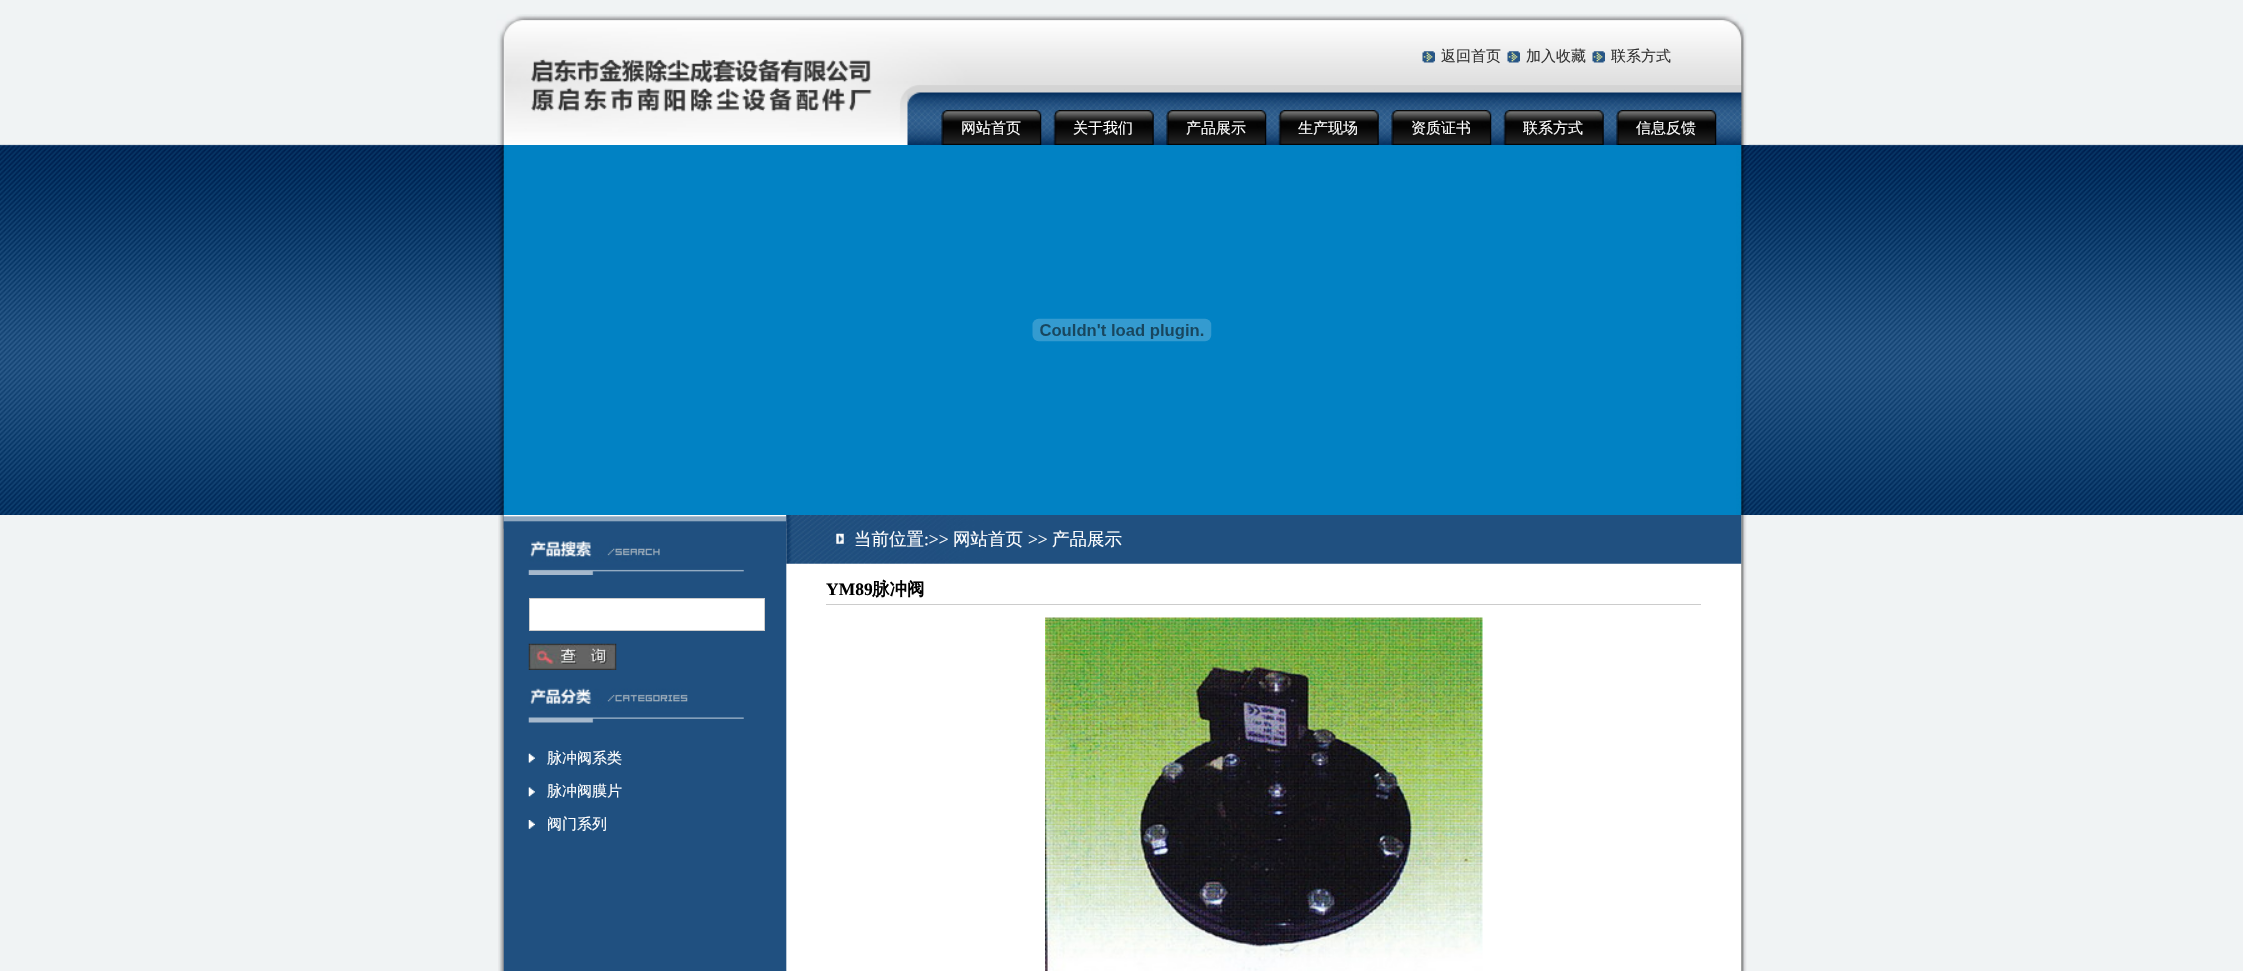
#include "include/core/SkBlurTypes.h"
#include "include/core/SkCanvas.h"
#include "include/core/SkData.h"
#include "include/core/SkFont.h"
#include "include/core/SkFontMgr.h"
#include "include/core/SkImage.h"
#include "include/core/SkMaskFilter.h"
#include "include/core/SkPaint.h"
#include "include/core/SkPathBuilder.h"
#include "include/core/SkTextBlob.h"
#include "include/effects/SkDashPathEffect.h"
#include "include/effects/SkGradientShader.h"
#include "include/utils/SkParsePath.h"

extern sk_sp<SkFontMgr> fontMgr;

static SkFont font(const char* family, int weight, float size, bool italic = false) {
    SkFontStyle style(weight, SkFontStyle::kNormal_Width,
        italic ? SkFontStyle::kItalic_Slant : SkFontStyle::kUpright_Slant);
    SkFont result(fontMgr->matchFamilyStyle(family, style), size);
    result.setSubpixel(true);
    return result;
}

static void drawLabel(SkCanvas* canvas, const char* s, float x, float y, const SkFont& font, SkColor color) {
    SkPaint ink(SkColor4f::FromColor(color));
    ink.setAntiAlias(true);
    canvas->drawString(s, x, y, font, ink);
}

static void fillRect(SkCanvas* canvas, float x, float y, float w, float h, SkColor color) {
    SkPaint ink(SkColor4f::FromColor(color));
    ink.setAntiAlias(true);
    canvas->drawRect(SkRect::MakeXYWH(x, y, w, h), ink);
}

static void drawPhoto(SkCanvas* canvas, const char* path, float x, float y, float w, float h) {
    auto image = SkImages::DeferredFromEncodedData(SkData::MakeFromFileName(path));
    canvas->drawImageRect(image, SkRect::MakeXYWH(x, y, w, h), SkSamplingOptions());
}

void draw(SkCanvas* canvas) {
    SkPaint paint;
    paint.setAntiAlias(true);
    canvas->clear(0xFFF0F3F4);
    drawPhoto(canvas, "assets/img1.png", 0, 144, 2243, 371);
    drawPhoto(canvas, "assets/img2.png", 496, 14, 1253, 131);
    drawPhoto(canvas, "assets/img3.png", 1422, 51, 13, 12);
    SkFont font1 = font("WenQuanYi Zen Hei", 500, 15);
    drawLabel(canvas, "返回首页", 1441, 61, font1, 0xFF333333);
    drawPhoto(canvas, "assets/img3.png", 1507, 51, 13, 12);
    drawLabel(canvas, "加入收藏", 1526, 61, font1, 0xFF333333);
    drawPhoto(canvas, "assets/img3.png", 1592, 51, 13, 12);
    drawLabel(canvas, "联系方式", 1611, 61, font1, 0xFF333333);
    drawPhoto(canvas, "assets/img4.png", 531, 58, 341, 54);
    drawPhoto(canvas, "assets/img5.png", 941, 110, 101, 35);
    drawLabel(canvas, "网站首页", 961, 133, font1, 0xFFFFFFFF);
    drawPhoto(canvas, "assets/img6.png", 1053, 110, 101, 35);
    drawLabel(canvas, "关于我们", 1073, 133, font1, 0xFFFFFFFF);
    drawPhoto(canvas, "assets/img7.png", 1166, 110, 101, 35);
    drawLabel(canvas, "产品展示", 1186, 133, font1, 0xFFFFFFFF);
    drawPhoto(canvas, "assets/img8.png", 1278, 110, 101, 35);
    drawLabel(canvas, "生产现场", 1298, 133, font1, 0xFFFFFFFF);
    drawPhoto(canvas, "assets/img5.png", 1391, 110, 101, 35);
    drawLabel(canvas, "资质证书", 1411, 133, font1, 0xFFFFFFFF);
    drawPhoto(canvas, "assets/img6.png", 1503, 110, 101, 35);
    drawLabel(canvas, "联系方式", 1523, 133, font1, 0xFFFFFFFF);
    drawPhoto(canvas, "assets/img7.png", 1616, 110, 101, 35);
    drawLabel(canvas, "信息反馈", 1636, 133, font1, 0xFFFFFFFF);
    drawPhoto(canvas, "assets/img9.png", 496, 145, 1253, 370);
    drawPhoto(canvas, "assets/img10.png", 1032, 318, 180, 24);
    drawPhoto(canvas, "assets/img11.png", 498, 515, 1249, 456);
    drawPhoto(canvas, "assets/img14.png", 503, 515, 284, 14);
    drawPhoto(canvas, "assets/img12.png", 786, 515, 956, 49);
    SkFont font2 = font("WenQuanYi Zen Hei", 500, 17.5f);
    drawLabel(canvas, "当前位置", 854, 545, font2, 0xFFFFFFFF);
    SkFont font3 = font("Liberation Serif", 400, 17.5f);
    drawLabel(canvas, ":>>", 924, 545, font3, 0xFFFFFFFF);
    drawLabel(canvas, "网站首页", 953, 545, font2, 0xFFFFFFFF);
    drawLabel(canvas, ">>", 1028, 545, font3, 0xFFFFFFFF);
    drawLabel(canvas, "产品展示", 1052, 545, font2, 0xFFFFFFFF);
    SkFont font4 = font("Liberation Serif", 700, 17.5f);
    drawLabel(canvas, "YM89", 826, 595, font4, 0xFF000000);
    SkFont font5 = font("WenQuanYi Zen Hei", 700, 17.5f);
    drawLabel(canvas, "脉冲阀", 872, 595, font5, 0xFF000000);
    fillRect(canvas, 826, 604, 875, 1, 0xFFCCCCCC);
    drawPhoto(canvas, "assets/img13.png", 1045, 617, 438, 354);
    drawPhoto(canvas, "assets/img15.png", 528, 541, 216, 34);
    paint.setColor(0xFFFFFFFF);
    canvas->drawRect(SkRect::MakeXYWH(529.5f, 598.5f, 235, 32), paint);
    paint.setStroke(true);
    paint.setStrokeWidth(1);
    paint.setColor(0xFFCCCCCC);
    canvas->drawRect(SkRect::MakeXYWH(529.5f, 598.5f, 235, 32), paint);
    drawPhoto(canvas, "assets/img16.png", 528, 643, 89, 27);
    drawPhoto(canvas, "assets/img17.png", 528, 688, 216, 35);
    drawPhoto(canvas, "assets/img18.png", 528, 753, 7, 10);
    drawLabel(canvas, "脉冲阀系类", 547, 763, font1, 0xFFFFFFFF);
    drawPhoto(canvas, "assets/img19.png", 528, 787, 7, 10);
    drawLabel(canvas, "脉冲阀膜片", 547, 796, font1, 0xFFFFFFFF);
    drawPhoto(canvas, "assets/img20.png", 528, 820, 7, 9);
    drawLabel(canvas, "阀门系列", 547, 829, font1, 0xFFFFFFFF);
}
